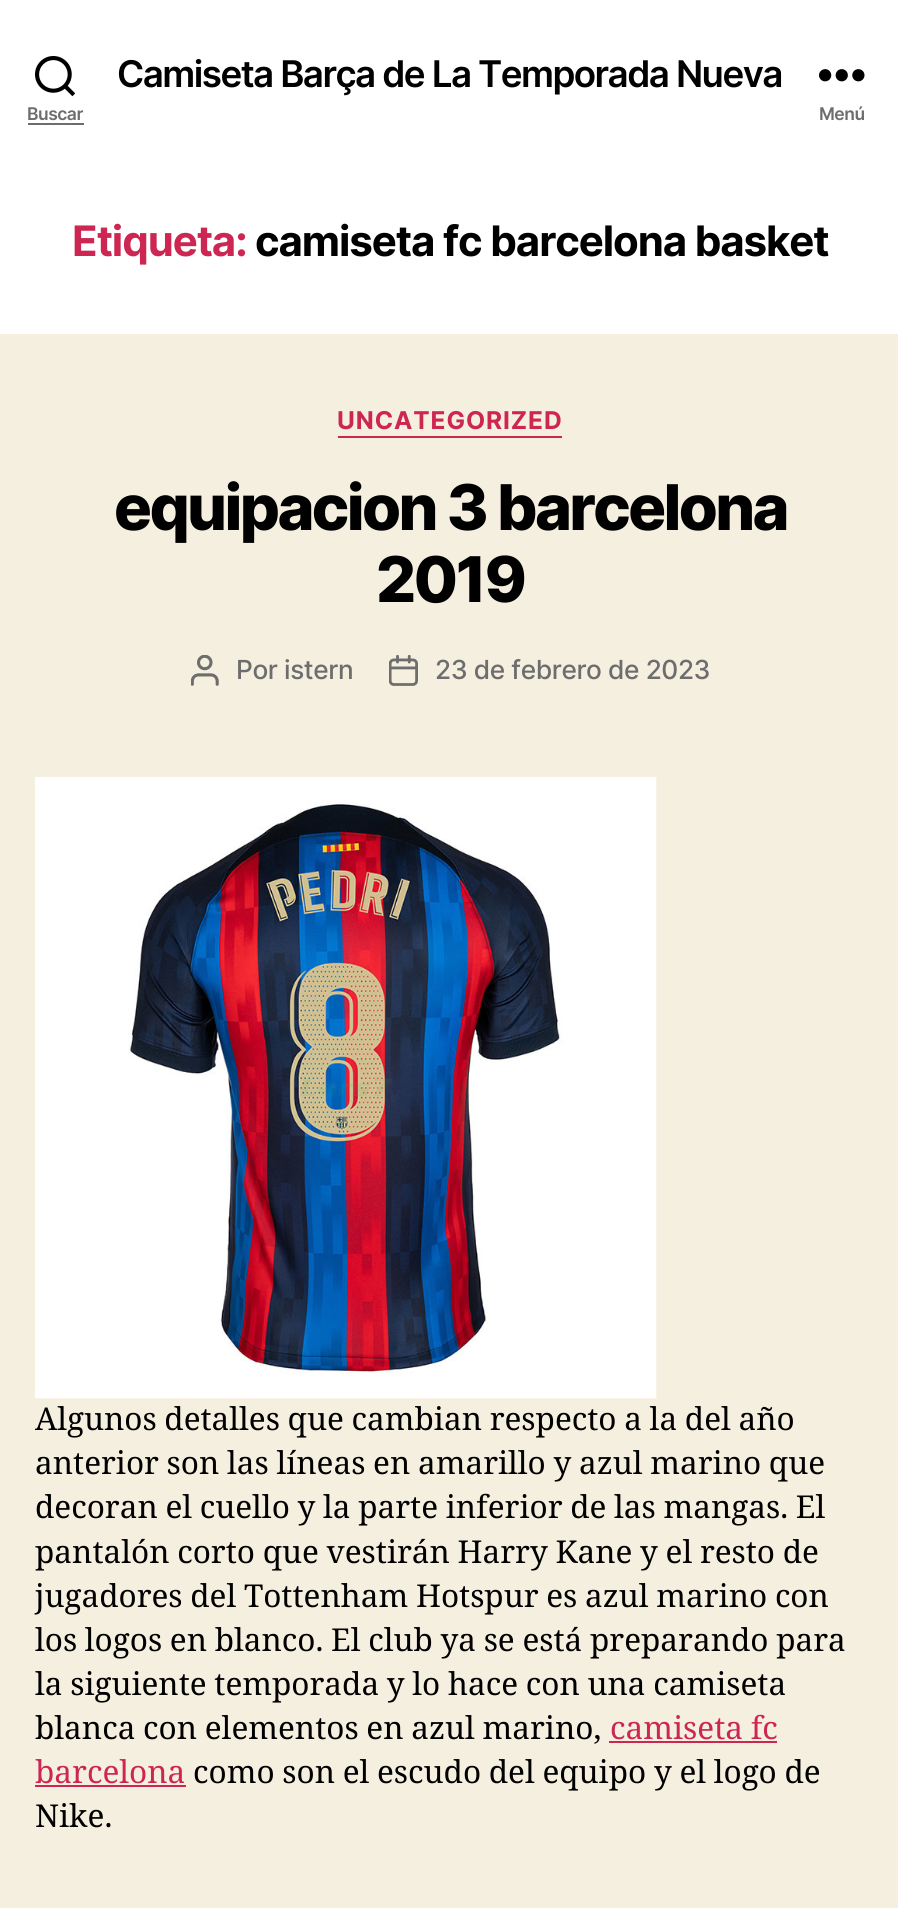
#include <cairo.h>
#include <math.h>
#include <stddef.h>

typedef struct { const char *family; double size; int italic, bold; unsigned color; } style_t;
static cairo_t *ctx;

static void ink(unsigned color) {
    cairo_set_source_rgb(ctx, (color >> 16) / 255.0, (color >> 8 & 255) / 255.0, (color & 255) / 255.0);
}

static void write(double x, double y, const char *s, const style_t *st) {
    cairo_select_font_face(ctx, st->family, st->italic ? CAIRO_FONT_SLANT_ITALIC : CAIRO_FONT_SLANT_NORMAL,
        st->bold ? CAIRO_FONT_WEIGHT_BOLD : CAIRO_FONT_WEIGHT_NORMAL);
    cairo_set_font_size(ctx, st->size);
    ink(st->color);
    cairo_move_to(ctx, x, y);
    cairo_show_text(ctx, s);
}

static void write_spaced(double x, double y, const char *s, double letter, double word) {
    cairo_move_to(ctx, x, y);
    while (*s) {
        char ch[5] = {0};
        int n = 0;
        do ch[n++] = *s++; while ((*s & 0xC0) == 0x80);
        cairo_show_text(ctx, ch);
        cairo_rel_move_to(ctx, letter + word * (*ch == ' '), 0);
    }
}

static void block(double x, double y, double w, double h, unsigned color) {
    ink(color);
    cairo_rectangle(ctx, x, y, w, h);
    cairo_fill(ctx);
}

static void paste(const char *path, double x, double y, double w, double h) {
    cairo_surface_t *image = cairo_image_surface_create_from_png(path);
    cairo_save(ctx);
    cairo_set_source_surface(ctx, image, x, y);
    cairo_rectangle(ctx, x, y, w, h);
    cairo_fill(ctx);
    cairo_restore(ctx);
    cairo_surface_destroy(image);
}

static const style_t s1 = {"Noto Serif", 31.5, 0, 0, 0xcd2653};
static const style_t s2 = {"Noto Serif", 31.5, 0, 0, 0x000000};

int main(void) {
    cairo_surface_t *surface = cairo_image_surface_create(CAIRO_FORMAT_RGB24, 898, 1908);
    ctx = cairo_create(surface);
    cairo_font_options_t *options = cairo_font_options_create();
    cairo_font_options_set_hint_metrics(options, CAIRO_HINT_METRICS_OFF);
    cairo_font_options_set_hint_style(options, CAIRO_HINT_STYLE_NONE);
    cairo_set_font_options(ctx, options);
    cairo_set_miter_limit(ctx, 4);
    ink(0xf5efe0);
    cairo_paint(ctx);
    block(0, 0, 898, 334, 0xffffff);
    cairo_select_font_face(ctx, "Inter SemiBold", CAIRO_FONT_SLANT_NORMAL, CAIRO_FONT_WEIGHT_NORMAL);
    cairo_set_font_size(ctx, 36.75);
    ink(0x000000);
    write_spaced(117, 87, "Camiseta Barça de La Temporada Nueva", -1.55, 0);
    paste("pic1.png", 35, 56, 40, 41);
    cairo_set_font_size(ctx, 17.5);
    ink(0x6d6d6d);
    write_spaced(27, 120, "Buscar", -0.5, 0);
    block(28, 123, 56, 2, 0x6d6d6d);
    paste("pic2.png", 819, 69, 46, 13);
    write_spaced(819, 120, "Menú", -0.5, 0);
    cairo_select_font_face(ctx, "Inter", CAIRO_FONT_SLANT_NORMAL, CAIRO_FONT_WEIGHT_BOLD);
    cairo_set_font_size(ctx, 42);
    ink(0xcd2653);
    write_spaced(72, 256, "Etiqueta:", -1.1, 0);
    ink(0x000000);
    write_spaced(255, 256, "camiseta fc barcelona basket", -1.1, 0);
    block(338, 436, 224, 2, 0xcd2653);
    cairo_set_font_size(ctx, 24.5);
    write_spaced(337, 429, "UNCATEGORIZED", 0.9, 0);
    cairo_select_font_face(ctx, "Inter ExtraBold", CAIRO_FONT_SLANT_NORMAL, CAIRO_FONT_WEIGHT_NORMAL);
    cairo_set_font_size(ctx, 63);
    ink(0x000000);
    write_spaced(114, 530, "equipacion 3 barcelona", -2.6, 0);
    write_spaced(376, 602, "2019", -2.6, 0);
    paste("pic3.png", 191, 655, 28, 31);
    cairo_select_font_face(ctx, "Inter Medium", CAIRO_FONT_SLANT_NORMAL, CAIRO_FONT_WEIGHT_NORMAL);
    cairo_set_font_size(ctx, 26.25);
    ink(0x6d6d6d);
    write_spaced(236, 679, "Por istern", -0.4, 0);
    paste("pic4.png", 389, 655, 29, 31);
    write_spaced(435, 679, "23 de febrero de 2023", -0.4, 0);
    paste("pic5.png", 35, 777, 622, 622);
    cairo_select_font_face(ctx, "Noto Serif", CAIRO_FONT_SLANT_NORMAL, CAIRO_FONT_WEIGHT_NORMAL);
    cairo_set_font_size(ctx, 31.5);
    ink(0x000000);
    write_spaced(35, 1430, "Algunos detalles que cambian respecto a la del año", 0, -0.5);
    write_spaced(35, 1474, "anterior son las líneas en amarillo y azul marino que", 0, -0.5);
    write_spaced(35, 1518, "decoran el cuello y la parte inferior de las mangas. El", 0, -0.5);
    write_spaced(35, 1563, "pantalón corto que vestirán Harry Kane y el resto de", 0, -0.5);
    write_spaced(35, 1607, "jugadores del Tottenham Hotspur es azul marino con", 0, -0.5);
    write_spaced(35, 1651, "los logos en blanco. El club ya se está preparando para", 0, -0.5);
    write_spaced(35, 1695, "la siguiente temporada y lo hace con una camiseta", 0, -0.5);
    write_spaced(35, 1739, "blanca con elementos en azul marino,", 0, -0.5);
    ink(0xcd2653);
    write_spaced(610, 1739, "camiseta fc", 0, -0.5);
    block(609, 1741, 168, 2, 0xcd2653);
    write(35, 1783, "barcelona", &s1);
    block(35, 1785, 151, 2, 0xcd2653);
    ink(0x000000);
    write_spaced(193, 1783, "como son el escudo del equipo y el logo de", 0, -0.5);
    write(35, 1827, "Nike.", &s2);
    cairo_surface_write_to_png(surface, "screenshot.png");
    cairo_font_options_destroy(options);
    cairo_destroy(ctx);
    cairo_surface_destroy(surface);
    return 0;
}
